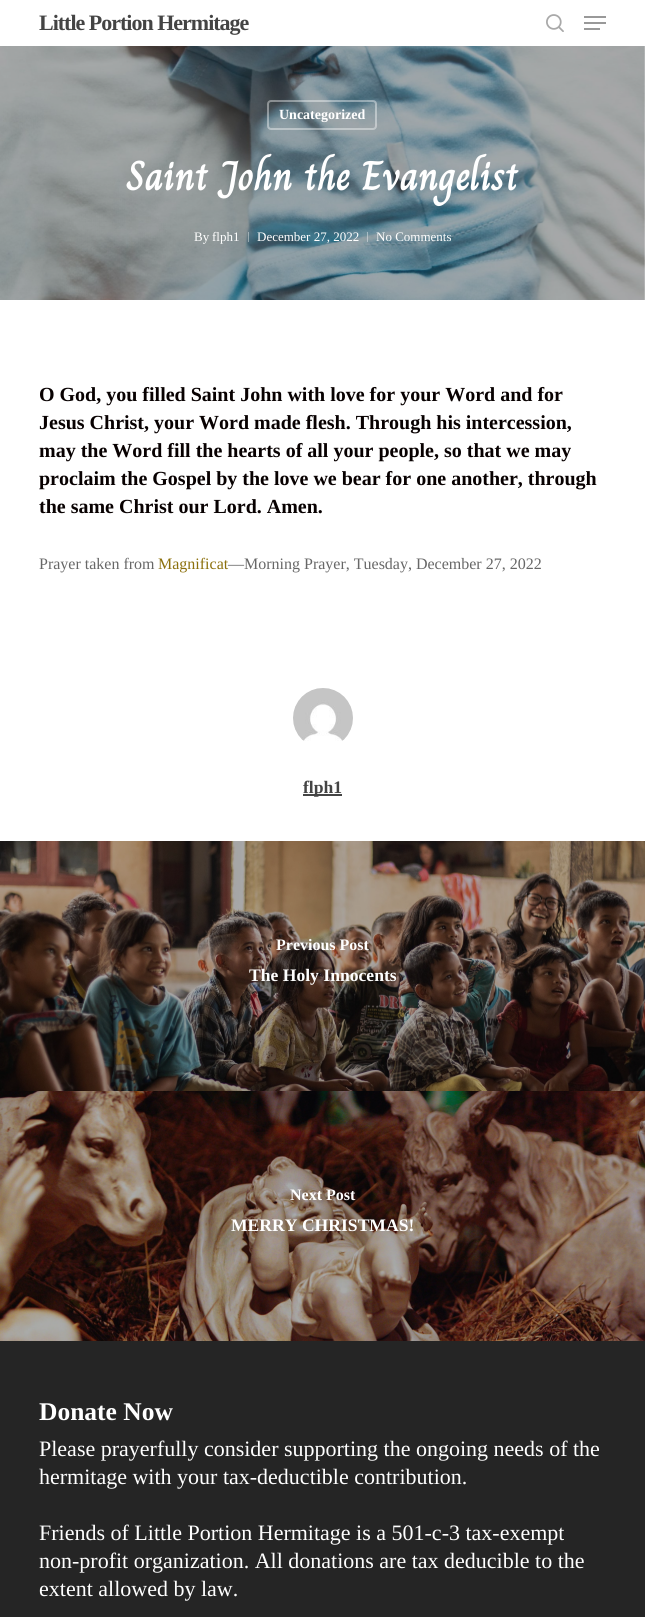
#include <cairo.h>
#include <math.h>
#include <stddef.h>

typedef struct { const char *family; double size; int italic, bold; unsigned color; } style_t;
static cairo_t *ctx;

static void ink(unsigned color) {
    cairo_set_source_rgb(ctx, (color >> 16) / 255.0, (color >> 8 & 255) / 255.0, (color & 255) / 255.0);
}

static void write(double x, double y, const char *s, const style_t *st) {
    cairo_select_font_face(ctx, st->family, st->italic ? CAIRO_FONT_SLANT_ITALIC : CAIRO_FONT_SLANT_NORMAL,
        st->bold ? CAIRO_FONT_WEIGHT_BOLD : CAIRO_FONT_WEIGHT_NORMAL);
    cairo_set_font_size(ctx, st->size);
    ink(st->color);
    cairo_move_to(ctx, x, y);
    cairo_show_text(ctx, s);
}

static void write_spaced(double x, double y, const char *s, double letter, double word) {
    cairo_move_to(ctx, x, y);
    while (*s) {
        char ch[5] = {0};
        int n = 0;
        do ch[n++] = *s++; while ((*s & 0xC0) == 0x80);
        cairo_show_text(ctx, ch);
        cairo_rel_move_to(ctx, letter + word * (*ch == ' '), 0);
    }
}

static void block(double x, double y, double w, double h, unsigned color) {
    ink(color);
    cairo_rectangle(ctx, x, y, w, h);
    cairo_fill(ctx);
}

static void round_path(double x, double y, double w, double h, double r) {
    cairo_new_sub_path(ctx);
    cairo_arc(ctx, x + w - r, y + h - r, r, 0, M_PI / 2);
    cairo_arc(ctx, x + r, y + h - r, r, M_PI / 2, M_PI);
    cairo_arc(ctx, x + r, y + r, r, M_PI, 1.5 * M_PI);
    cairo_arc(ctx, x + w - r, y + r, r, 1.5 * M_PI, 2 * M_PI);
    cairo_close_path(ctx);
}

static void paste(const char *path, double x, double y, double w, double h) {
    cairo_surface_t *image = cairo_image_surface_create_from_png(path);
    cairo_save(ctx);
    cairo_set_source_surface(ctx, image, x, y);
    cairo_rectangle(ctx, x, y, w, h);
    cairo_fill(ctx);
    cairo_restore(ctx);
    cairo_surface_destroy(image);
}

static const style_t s1 = {"Liberation Serif", 14, 0, 1, 0xffffff};
static const style_t s2 = {"Charm", 40.25, 0, 1, 0xffffff};
static const style_t s3 = {"Liberation Serif", 13, 0, 0, 0xffffff};
static const style_t s4 = {"Liberation Serif", 20, 0, 1, 0x080101};
static const style_t s5 = {"Liberation Serif", 16, 0, 0, 0x676767};
static const style_t s6 = {"Liberation Serif", 16, 0, 0, 0x8c700c};
static const style_t s7 = {"Liberation Serif", 17.6, 0, 1, 0x444444};
static const style_t s8 = {"Liberation Serif", 16, 0, 1, 0xffffff};
static const style_t s9 = {"Liberation Serif", 17.6, 0, 1, 0xffffff};
static const style_t s10 = {"Liberation Serif", 25.5, 0, 1, 0xffffff};
static const style_t s11 = {"Liberation Serif", 22, 0, 0, 0xffffff};

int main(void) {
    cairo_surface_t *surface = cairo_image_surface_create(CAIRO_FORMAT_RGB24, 645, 1617);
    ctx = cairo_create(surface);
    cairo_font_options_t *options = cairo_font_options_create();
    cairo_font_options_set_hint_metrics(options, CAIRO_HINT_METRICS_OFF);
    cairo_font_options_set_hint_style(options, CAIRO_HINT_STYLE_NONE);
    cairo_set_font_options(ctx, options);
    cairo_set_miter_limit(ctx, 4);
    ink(0xffffff);
    cairo_paint(ctx);
    cairo_select_font_face(ctx, "Liberation Serif", CAIRO_FONT_SLANT_NORMAL, CAIRO_FONT_WEIGHT_BOLD);
    cairo_set_font_size(ctx, 22);
    ink(0x444444);
    write_spaced(39, 30, "Little Portion Hermitage", -1, 0);
    paste("pic1.png", 546, 14, 18, 18);
    block(584, 16, 22, 2, 0x999999);
    block(584, 28, 16, 2, 0x999999);
    block(584, 22, 22, 2, 0x999999);
    paste("pic2.png", 0, 46, 645, 254);
    round_path(268, 101, 108, 28, 3);
    cairo_set_source_rgba(ctx, 1, 1, 1, 0.4);
    cairo_stroke(ctx);
    write(279, 119, "Uncategorized", &s1);
    write(126, 190, "Saint John the Evangelist", &s2);
    write(194, 241, "By", &s3);
    write(212, 241, "flph1", &s3);
    cairo_set_source_rgba(ctx, 1, 1, 1, 0.4);
    cairo_rectangle(ctx, 248, 232, 1, 10);
    cairo_fill(ctx);
    write(257, 241, "December 27, 2022", &s3);
    cairo_set_source_rgba(ctx, 1, 1, 1, 0.4);
    cairo_rectangle(ctx, 367, 232, 1, 10);
    cairo_fill(ctx);
    write(376, 241, "No Comments", &s3);
    write(39, 401, "O God, you filled Saint John with love for your Word and for", &s4);
    write(39, 429, "Jesus Christ, your Word made flesh. Through his intercession,", &s4);
    write(39, 457, "may the Word fill the hearts of all your people, so that we may", &s4);
    write(39, 485, "proclaim the Gospel by the love we bear for one another, through", &s4);
    write(39, 513, "the same Christ our Lord. Amen.", &s4);
    write(39, 569, "Prayer taken from", &s5);
    write(158, 569, "Magnificat", &s6);
    write(228, 569, "—Morning Prayer, Tuesday, December 27, 2022", &s5);
    paste("pic3.png", 293, 688, 60, 53);
    block(303, 794, 39, 2, 0x444444);
    write(303, 793, "flph1", &s7);
    paste("pic4.png", 0, 841, 645, 250);
    write(276, 950, "Previous Post", &s8);
    write(249, 981, "The Holy Innocents", &s9);
    paste("pic5.png", 0, 1091, 645, 250);
    write(290, 1200, "Next Post", &s8);
    write(231, 1231, "MERRY CHRISTMAS!", &s9);
    block(0, 1341, 645, 276, 0x252525);
    write(39, 1420, "Donate Now", &s10);
    write(39, 1456, "Please prayerfully consider supporting the ongoing needs of the", &s11);
    write(39, 1484, "hermitage with your tax-deductible contribution.", &s11);
    write(39, 1540, "Friends of Little Portion Hermitage is a 501-c-3 tax-exempt", &s11);
    write(39, 1568, "non-profit organization. All donations are tax deducible to the", &s11);
    write(39, 1596, "extent allowed by law.", &s11);
    cairo_surface_write_to_png(surface, "screenshot.png");
    cairo_font_options_destroy(options);
    cairo_destroy(ctx);
    cairo_surface_destroy(surface);
    return 0;
}
